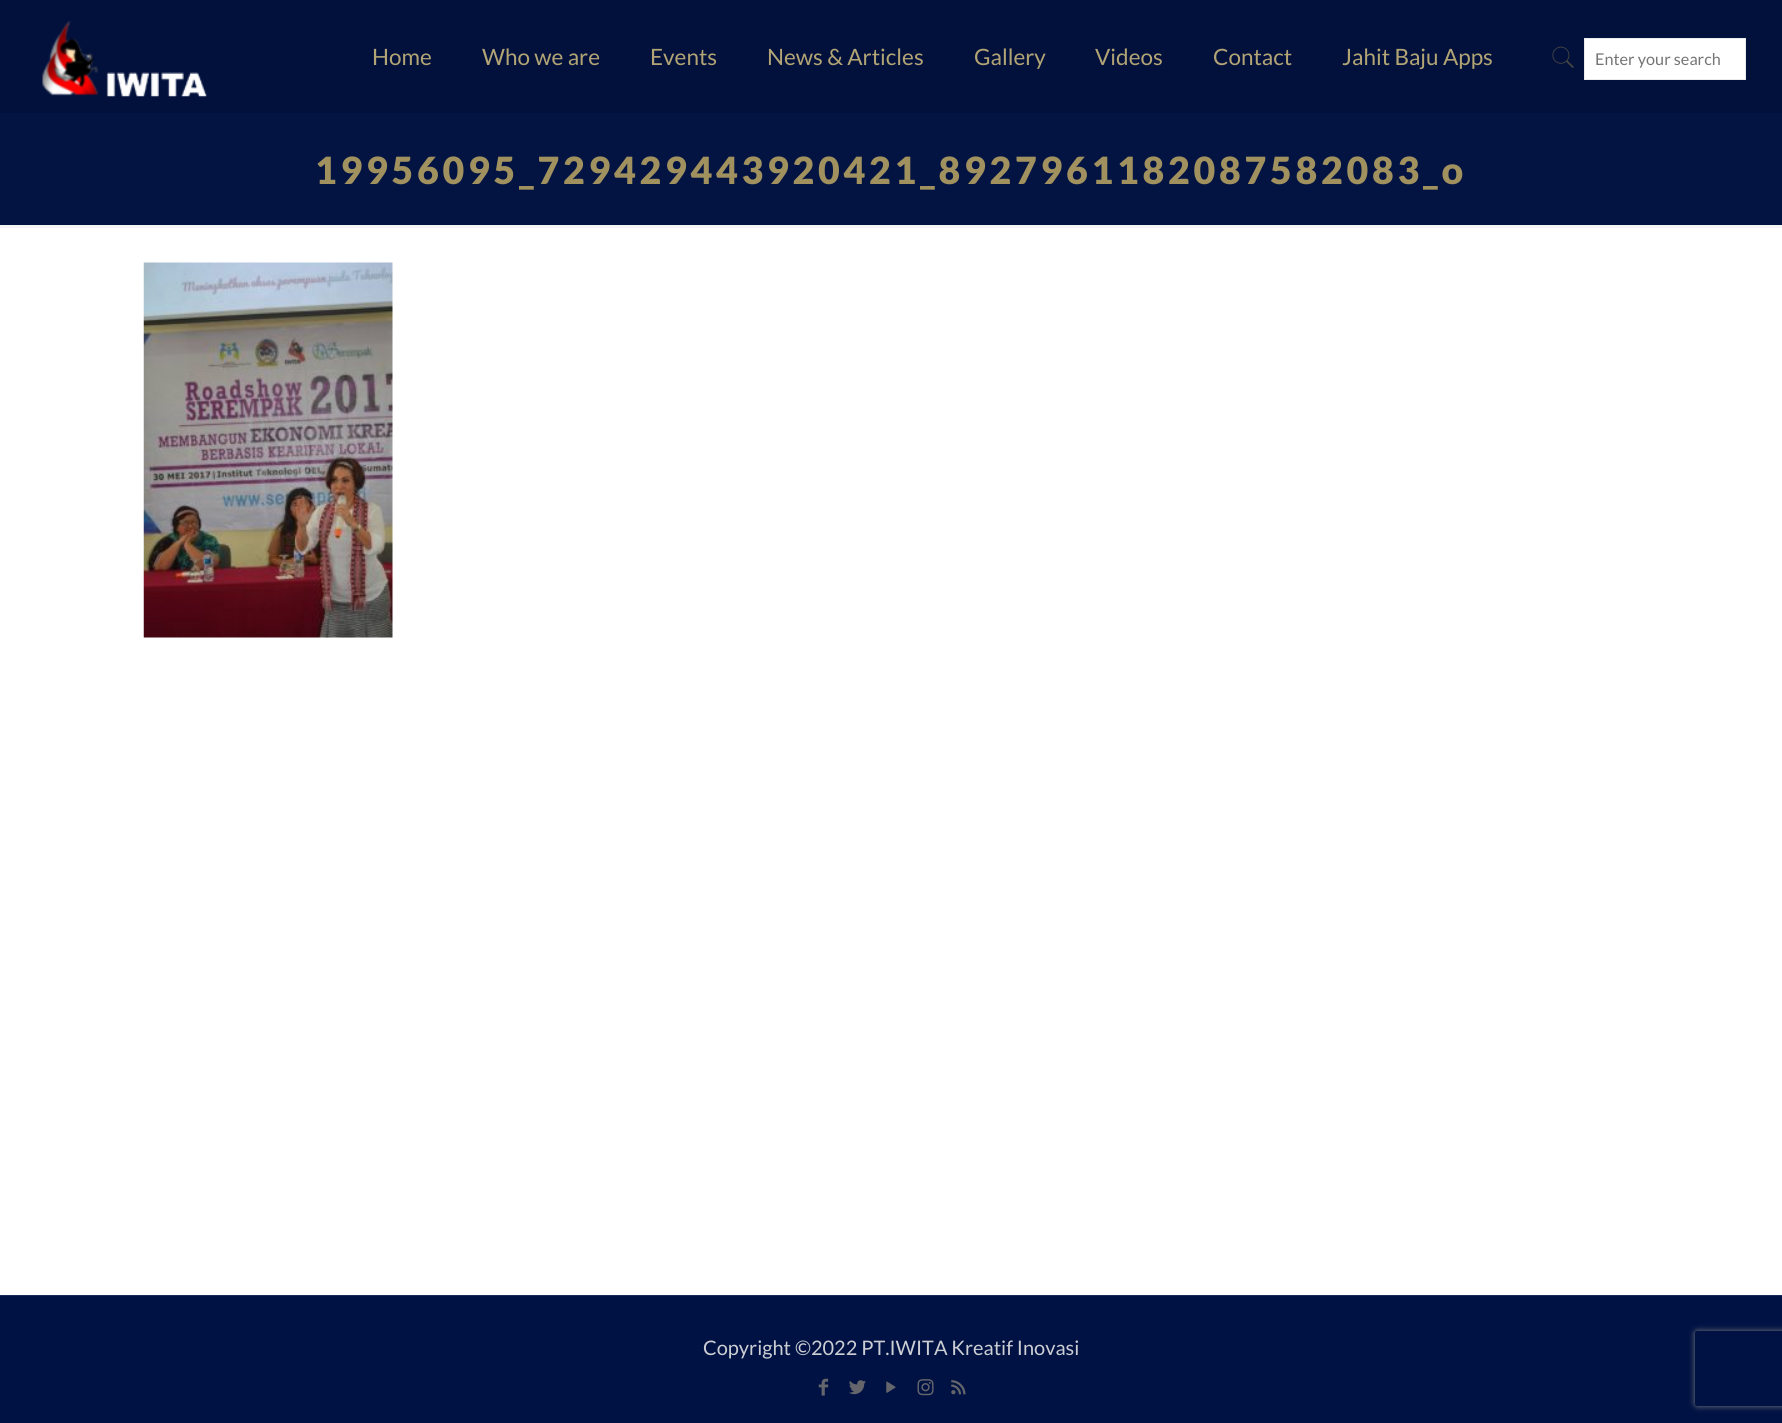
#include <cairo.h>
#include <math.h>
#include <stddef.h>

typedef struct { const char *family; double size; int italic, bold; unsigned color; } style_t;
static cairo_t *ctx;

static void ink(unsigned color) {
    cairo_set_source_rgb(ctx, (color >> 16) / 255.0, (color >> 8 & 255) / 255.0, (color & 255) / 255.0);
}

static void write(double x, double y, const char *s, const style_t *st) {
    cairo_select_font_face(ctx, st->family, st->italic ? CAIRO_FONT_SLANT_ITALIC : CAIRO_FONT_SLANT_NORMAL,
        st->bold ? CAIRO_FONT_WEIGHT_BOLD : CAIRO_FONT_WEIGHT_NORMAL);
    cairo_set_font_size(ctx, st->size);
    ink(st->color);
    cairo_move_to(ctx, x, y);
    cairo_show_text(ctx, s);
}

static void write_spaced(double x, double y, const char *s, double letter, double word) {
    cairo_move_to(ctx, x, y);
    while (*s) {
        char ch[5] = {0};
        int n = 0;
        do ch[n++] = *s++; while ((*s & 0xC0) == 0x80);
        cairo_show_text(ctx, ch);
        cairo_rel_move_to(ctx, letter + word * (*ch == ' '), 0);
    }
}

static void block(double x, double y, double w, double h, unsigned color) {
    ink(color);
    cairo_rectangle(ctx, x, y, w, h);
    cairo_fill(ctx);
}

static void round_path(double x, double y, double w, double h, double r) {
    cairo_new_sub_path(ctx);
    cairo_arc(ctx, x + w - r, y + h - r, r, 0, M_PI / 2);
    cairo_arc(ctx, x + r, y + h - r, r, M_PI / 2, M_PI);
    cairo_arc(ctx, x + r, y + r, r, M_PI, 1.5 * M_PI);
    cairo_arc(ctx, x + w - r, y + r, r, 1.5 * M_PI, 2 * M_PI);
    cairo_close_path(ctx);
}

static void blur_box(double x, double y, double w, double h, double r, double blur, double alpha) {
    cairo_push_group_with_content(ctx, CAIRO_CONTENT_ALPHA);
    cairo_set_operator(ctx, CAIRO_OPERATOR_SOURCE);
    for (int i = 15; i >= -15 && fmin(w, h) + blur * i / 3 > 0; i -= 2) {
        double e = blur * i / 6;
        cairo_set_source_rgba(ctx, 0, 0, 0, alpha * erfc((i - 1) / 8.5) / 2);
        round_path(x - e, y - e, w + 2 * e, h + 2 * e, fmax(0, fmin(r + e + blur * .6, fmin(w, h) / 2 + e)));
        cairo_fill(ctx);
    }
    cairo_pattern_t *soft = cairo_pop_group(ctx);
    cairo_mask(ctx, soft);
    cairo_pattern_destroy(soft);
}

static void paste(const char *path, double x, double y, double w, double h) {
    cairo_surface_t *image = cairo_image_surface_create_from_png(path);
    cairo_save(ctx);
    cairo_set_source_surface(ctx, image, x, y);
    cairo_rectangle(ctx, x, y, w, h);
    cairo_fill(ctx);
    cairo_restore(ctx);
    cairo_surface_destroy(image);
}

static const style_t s1 = {"Lato", 22.5, 0, 0, 0xb2a475};
static const style_t s2 = {"Lato", 16.25, 0, 0, 0x757575};
static const style_t s3 = {"Lato", 20, 0, 0, 0xccced4};

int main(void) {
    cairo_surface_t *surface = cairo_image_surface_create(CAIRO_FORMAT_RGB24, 1782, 1423);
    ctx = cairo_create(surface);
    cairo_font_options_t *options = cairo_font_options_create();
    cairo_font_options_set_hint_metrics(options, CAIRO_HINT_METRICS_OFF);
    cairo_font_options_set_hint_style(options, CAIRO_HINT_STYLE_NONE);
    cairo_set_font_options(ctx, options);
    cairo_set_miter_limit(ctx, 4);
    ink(0xffffff);
    cairo_paint(ctx);
    block(0, 113, 1782, 112, 0x031442);
    block(0, 0, 1782, 113, 0x02113c);
    paste("pic1.png", 42, 21, 165, 76);
    write(372, 65, "Home", &s1);
    write(482, 65, "Who we are", &s1);
    write(650, 65, "Events", &s1);
    write(767, 65, "News & Articles", &s1);
    write(974, 65, "Gallery", &s1);
    write(1095, 65, "Videos", &s1);
    write(1213, 65, "Contact", &s1);
    write(1342, 65, "Jahit Baju Apps", &s1);
    paste("pic2.png", 1552, 46, 22, 22);
    ink(0xffffff);
    cairo_rectangle(ctx, 1584.5, 38.5, 161, 41);
    cairo_fill_preserve(ctx);
    ink(0xebebeb);
    cairo_set_line_width(ctx, 1);
    cairo_stroke(ctx);
    write(1595, 65, "Enter your search", &s2);
    cairo_select_font_face(ctx, "Lato Black", CAIRO_FONT_SLANT_NORMAL, CAIRO_FONT_WEIGHT_NORMAL);
    cairo_set_font_size(ctx, 37.5);
    ink(0xa0915f);
    write_spaced(315, 184, "19956095_729429443920421_8927961182087582083_o", 3.75, 0);
    block(0, 225, 1782, 3, 0xf5f5f5);
    paste("pic3.png", 143, 262, 250, 376);
    block(0, 1296, 1782, 127, 0x001243);
    block(0, 1295, 1782, 1, 0x1a2a56);
    write(703, 1355, "Copyright ©2022 PT.IWITA Kreatif Inovasi", &s3);
    paste("pic4.png", 818, 1378, 11, 18);
    paste("pic5.png", 849, 1380, 17, 15);
    paste("pic6.png", 886, 1381, 10, 12);
    paste("pic7.png", 917, 1379, 17, 17);
    paste("pic8.png", 951, 1380, 15, 15);
    cairo_save(ctx);
    cairo_set_fill_rule(ctx, CAIRO_FILL_RULE_EVEN_ODD);
    cairo_new_path(ctx);
    cairo_move_to(ctx, 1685, 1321);
    cairo_line_to(ctx, 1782, 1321);
    cairo_line_to(ctx, 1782, 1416);
    cairo_line_to(ctx, 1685, 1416);
    cairo_close_path(ctx);
    cairo_move_to(ctx, 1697.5, 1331);
    cairo_line_to(ctx, 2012.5, 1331);
    cairo_curve_to(ctx, 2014, 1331, 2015, 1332, 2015, 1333.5);
    cairo_line_to(ctx, 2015, 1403.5);
    cairo_curve_to(ctx, 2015, 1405, 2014, 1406, 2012.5, 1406);
    cairo_line_to(ctx, 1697.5, 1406);
    cairo_curve_to(ctx, 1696, 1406, 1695, 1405, 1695, 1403.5);
    cairo_line_to(ctx, 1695, 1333.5);
    cairo_curve_to(ctx, 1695, 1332, 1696, 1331, 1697.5, 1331);
    cairo_close_path(ctx);
    cairo_clip(ctx);
    ink(0x808080);
    blur_box(1695, 1331, 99, 75, 2.5, 3, 1);
    cairo_restore(ctx);
    cairo_surface_write_to_png(surface, "screenshot.png");
    cairo_font_options_destroy(options);
    cairo_destroy(ctx);
    cairo_surface_destroy(surface);
    return 0;
}
